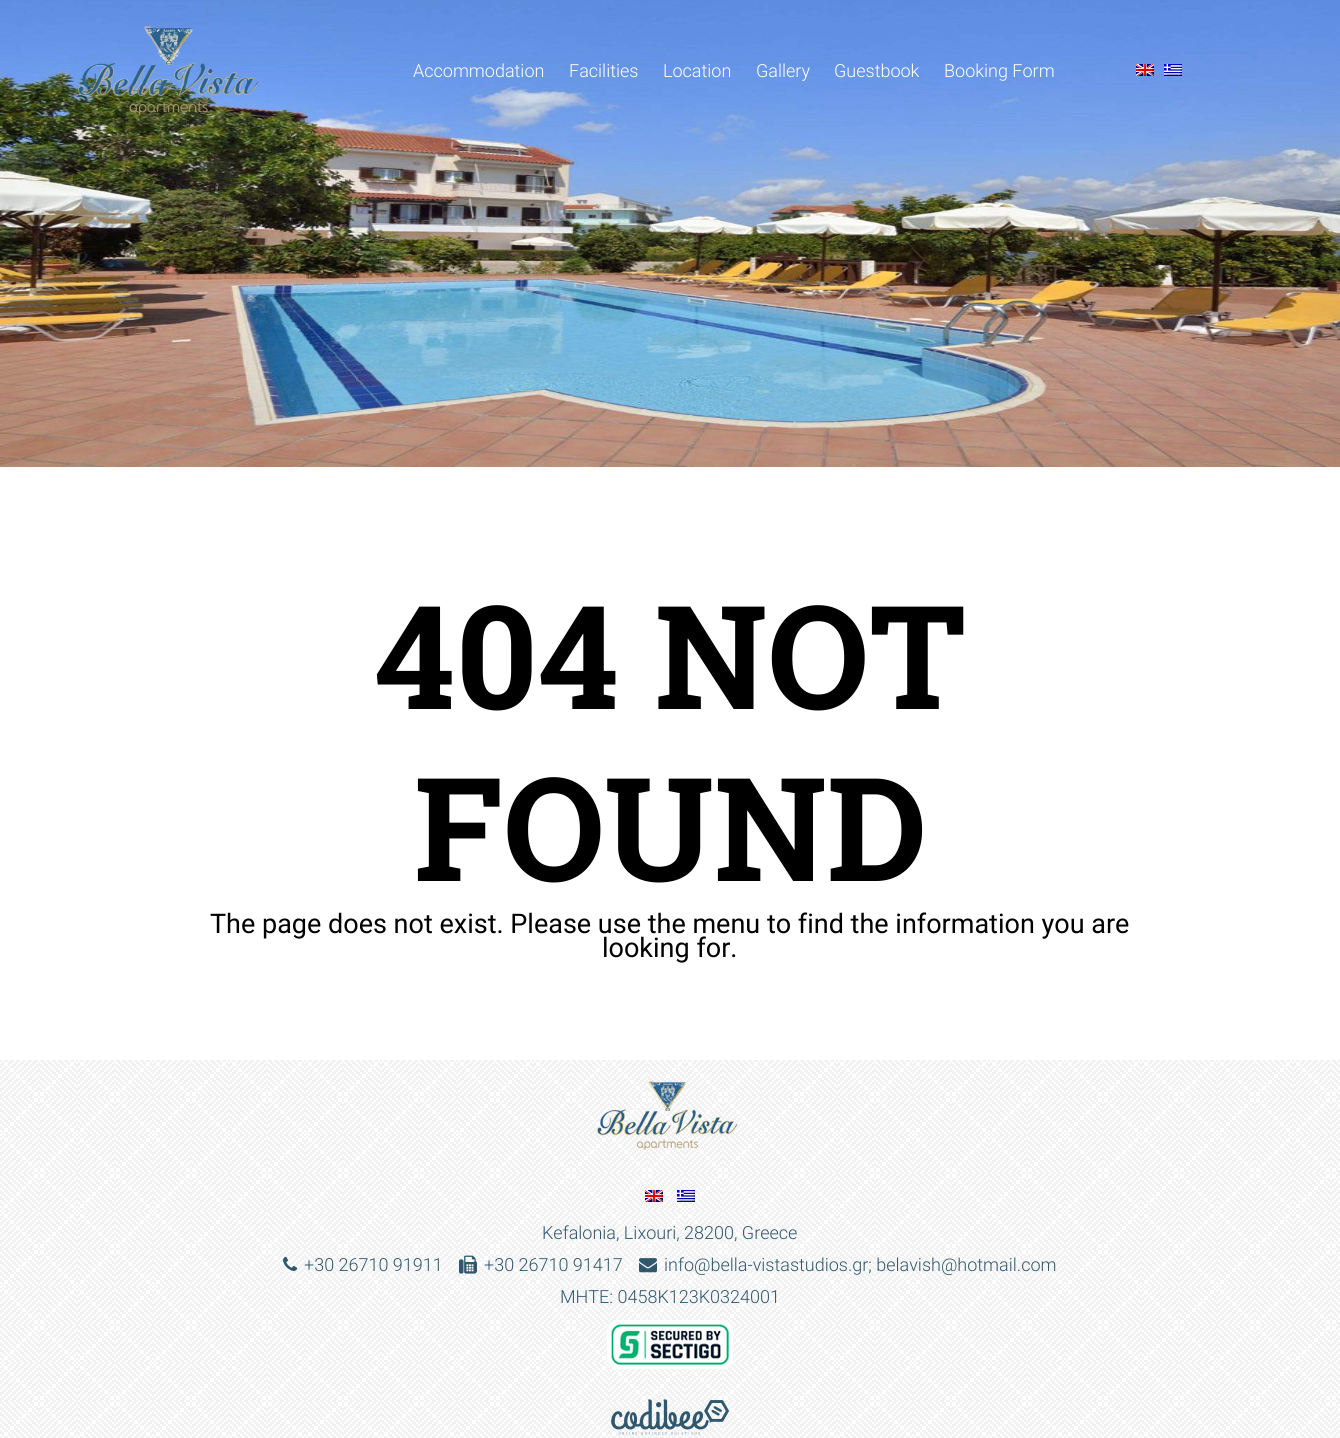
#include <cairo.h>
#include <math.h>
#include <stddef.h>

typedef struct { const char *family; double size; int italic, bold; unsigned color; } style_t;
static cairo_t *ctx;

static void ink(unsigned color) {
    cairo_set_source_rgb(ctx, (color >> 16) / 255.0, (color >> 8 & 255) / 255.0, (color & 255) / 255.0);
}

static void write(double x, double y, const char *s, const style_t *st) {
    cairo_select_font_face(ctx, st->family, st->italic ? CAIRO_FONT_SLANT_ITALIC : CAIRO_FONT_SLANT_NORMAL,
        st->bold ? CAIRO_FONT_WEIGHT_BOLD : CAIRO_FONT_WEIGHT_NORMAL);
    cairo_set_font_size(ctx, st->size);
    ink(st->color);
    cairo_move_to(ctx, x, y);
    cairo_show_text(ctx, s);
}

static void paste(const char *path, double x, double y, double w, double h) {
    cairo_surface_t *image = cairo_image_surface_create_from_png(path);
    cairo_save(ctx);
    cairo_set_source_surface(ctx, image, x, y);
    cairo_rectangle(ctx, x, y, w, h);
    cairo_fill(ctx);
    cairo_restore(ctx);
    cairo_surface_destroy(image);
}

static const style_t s1 = {"Roboto Light", 18, 0, 0, 0xffffff};
static const style_t s2 = {"Roboto Slab", 144, 0, 1, 0x000000};
static const style_t s3 = {"Roboto", 27, 0, 0, 0x000000};
static const style_t s4 = {"Roboto Light", 18, 0, 0, 0x2f586e};

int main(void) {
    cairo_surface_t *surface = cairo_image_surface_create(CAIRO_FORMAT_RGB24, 1340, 1438);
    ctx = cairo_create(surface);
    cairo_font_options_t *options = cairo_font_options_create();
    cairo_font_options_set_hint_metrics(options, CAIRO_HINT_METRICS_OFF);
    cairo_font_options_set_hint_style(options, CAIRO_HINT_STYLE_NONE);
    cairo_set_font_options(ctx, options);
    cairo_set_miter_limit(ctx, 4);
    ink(0xffffff);
    cairo_paint(ctx);
    paste("pic4.png", 0, 0, 1340, 467);
    paste("pic1.png", 77, 25, 182, 90);
    write(413, 77, "Accommodation", &s1);
    write(569, 77, "Facilities", &s1);
    write(663, 77, "Location", &s1);
    write(756, 77, "Gallery", &s1);
    write(834, 77, "Guestbook", &s1);
    write(944, 77, "Booking Form", &s1);
    paste("pic2.png", 1136, 64, 18, 12);
    paste("pic3.png", 1164, 64, 18, 12);
    write(374, 709, "404 NOT", &s2);
    write(414, 881, "FOUND", &s2);
    write(210, 933, "The page does not exist. Please use the menu to find the information you are", &s3);
    write(602, 957, "looking for.", &s3);
    paste("pic5.png", 0, 1060, 1340, 378);
    paste("pic6.png", 597, 1080, 141, 70);
    paste("pic2.png", 645, 1190, 18, 12);
    paste("pic3.png", 677, 1190, 18, 12);
    write(542, 1239, "Kefalonia, Lixouri, 28200, Greece", &s4);
    paste("pic7.png", 283, 1256, 15, 15);
    write(304, 1271, "+30 26710 91911", &s4);
    paste("pic8.png", 459, 1255, 18, 19);
    write(484, 1271, "+30 26710 91417", &s4);
    paste("pic9.png", 639, 1258, 18, 15);
    write(664, 1271, "info@bella-vistastudios.gr; belavish@hotmail.com", &s4);
    write(560, 1303, "MHTE: 0458K123K0324001", &s4);
    paste("pic10.png", 607, 1320, 126, 49);
    paste("pic11.png", 611, 1399, 118, 36);
    cairo_surface_write_to_png(surface, "screenshot.png");
    cairo_font_options_destroy(options);
    cairo_destroy(ctx);
    cairo_surface_destroy(surface);
    return 0;
}
